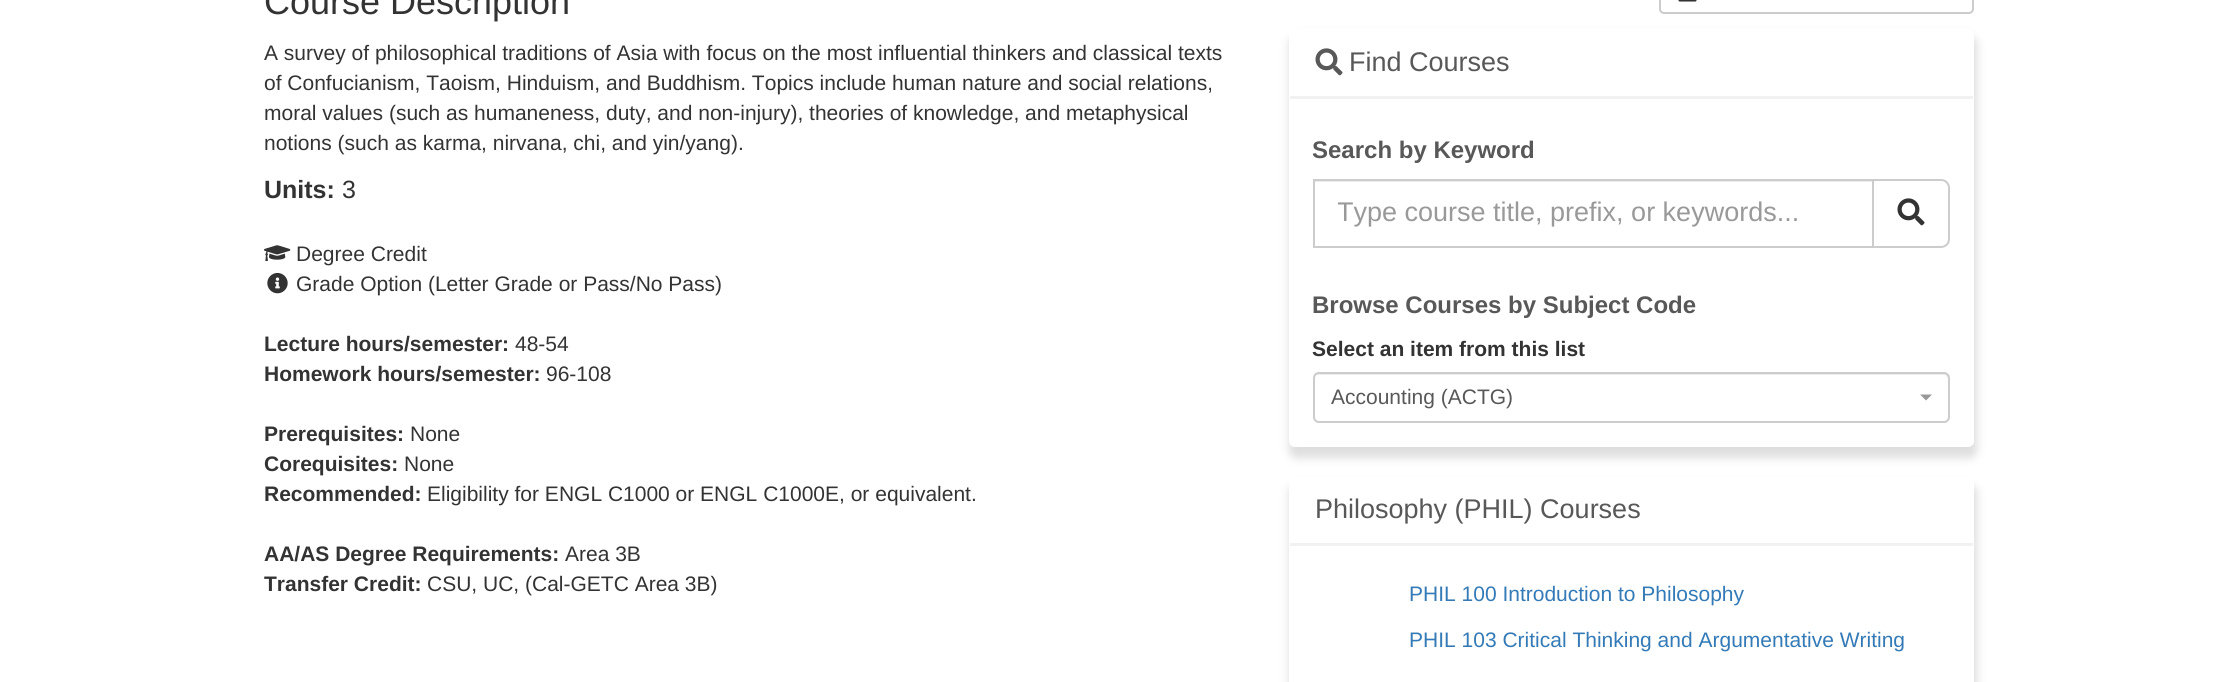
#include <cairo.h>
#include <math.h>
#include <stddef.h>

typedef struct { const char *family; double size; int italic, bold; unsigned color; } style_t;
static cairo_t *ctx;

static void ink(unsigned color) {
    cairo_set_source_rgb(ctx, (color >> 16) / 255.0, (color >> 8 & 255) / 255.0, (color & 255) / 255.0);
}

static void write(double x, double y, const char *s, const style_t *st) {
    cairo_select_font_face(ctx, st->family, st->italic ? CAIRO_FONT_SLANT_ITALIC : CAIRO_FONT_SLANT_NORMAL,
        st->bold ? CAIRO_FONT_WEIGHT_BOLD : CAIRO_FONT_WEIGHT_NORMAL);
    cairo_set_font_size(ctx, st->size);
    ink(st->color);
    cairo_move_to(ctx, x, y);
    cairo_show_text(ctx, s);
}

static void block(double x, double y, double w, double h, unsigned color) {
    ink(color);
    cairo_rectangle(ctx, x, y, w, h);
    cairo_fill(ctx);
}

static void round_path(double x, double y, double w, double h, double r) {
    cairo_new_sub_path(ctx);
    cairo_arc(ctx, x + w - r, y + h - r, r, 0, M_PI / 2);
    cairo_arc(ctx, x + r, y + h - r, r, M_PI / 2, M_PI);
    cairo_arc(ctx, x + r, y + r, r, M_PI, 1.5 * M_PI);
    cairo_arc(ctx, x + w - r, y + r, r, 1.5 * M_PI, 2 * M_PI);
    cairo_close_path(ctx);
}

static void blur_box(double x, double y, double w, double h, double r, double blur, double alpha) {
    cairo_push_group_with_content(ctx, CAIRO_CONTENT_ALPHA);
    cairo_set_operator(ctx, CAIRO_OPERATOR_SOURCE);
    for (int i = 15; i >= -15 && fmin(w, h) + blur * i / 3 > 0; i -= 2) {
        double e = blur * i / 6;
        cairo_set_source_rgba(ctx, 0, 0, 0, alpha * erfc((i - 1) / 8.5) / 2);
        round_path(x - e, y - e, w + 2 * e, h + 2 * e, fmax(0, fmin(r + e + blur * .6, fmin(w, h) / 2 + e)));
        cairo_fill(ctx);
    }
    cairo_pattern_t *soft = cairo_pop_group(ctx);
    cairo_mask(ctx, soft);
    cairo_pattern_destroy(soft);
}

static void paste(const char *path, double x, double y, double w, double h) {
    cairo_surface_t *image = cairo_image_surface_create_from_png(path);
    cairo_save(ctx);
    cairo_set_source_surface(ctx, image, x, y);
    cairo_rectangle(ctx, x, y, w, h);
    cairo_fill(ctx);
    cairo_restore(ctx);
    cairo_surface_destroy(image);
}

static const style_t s1 = {"Liberation Sans", 36, 0, 0, 0x333333};
static const style_t s2 = {"Liberation Sans", 21, 0, 0, 0x333333};
static const style_t s3 = {"Liberation Sans", 25, 0, 1, 0x333333};
static const style_t s4 = {"Liberation Sans", 25, 0, 0, 0x333333};
static const style_t s5 = {"Liberation Sans", 21, 0, 1, 0x333333};
static const style_t s6 = {"Liberation Sans", 27, 0, 0, 0x585858};
static const style_t s7 = {"Liberation Sans", 24, 0, 1, 0x585858};
static const style_t s8 = {"Liberation Sans", 27, 0, 0, 0x999999};
static const style_t s9 = {"Liberation Sans", 21, 0, 0, 0x585858};
static const style_t s10 = {"Liberation Sans", 21, 0, 0, 0x337ab7};

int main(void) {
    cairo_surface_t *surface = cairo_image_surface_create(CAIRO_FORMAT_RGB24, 2238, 682);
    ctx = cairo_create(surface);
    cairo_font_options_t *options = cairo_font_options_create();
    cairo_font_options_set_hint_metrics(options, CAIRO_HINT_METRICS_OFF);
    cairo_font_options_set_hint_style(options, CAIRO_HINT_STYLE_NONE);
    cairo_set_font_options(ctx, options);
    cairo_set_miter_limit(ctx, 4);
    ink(0xffffff);
    cairo_paint(ctx);
    write(264, 14, "Course Description", &s1);
    write(264, 60, "A survey of philosophical traditions of Asia with focus on the most influential thinkers and classical texts", &s2);
    write(264, 90, "of Confucianism, Taoism, Hinduism, and Buddhism. Topics include human nature and social relations,", &s2);
    write(264, 120, "moral values (such as humaneness, duty, and non-injury), theories of knowledge, and metaphysical", &s2);
    write(264, 150, "notions (such as karma, nirvana, chi, and yin/yang).", &s2);
    write(264, 198, "Units:", &s3);
    write(342, 198, "3", &s4);
    paste("pic1.png", 264, 245, 27, 16);
    write(296, 261, "Degree Credit", &s2);
    paste("pic2.png", 267, 272, 21, 22);
    write(296, 291, "Grade Option (Letter Grade or Pass/No Pass)", &s2);
    write(264, 351, "Lecture hours/semester:", &s5);
    write(515, 351, "48-54", &s2);
    write(264, 381, "Homework hours/semester:", &s5);
    write(546, 381, "96-108", &s2);
    write(264, 441, "Prerequisites:", &s5);
    write(410, 441, "None", &s2);
    write(264, 471, "Corequisites:", &s5);
    write(404, 471, "None", &s2);
    write(264, 501, "Recommended:", &s5);
    write(427, 501, "Eligibility for ENGL C1000 or ENGL C1000E, or equivalent.", &s2);
    write(264, 561, "AA/AS Degree Requirements:", &s5);
    write(565, 561, "Area 3B", &s2);
    write(264, 591, "Transfer Credit:", &s5);
    write(427, 591, "CSU, UC, (Cal-GETC Area 3B)", &s2);
    round_path(1660, -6, 313, 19, 4);
    ink(0xcccccc);
    cairo_stroke(ctx);
    paste("pic3.png", 1678, 0, 19, 2);
    ink(0xdedede);
    blur_box(1289, 36, 688, 422, 8, 4.5, 1);
    ink(0xffffff);
    round_path(1289, 29, 685, 418, 6);
    cairo_fill(ctx);
    block(1290, 96, 683, 3, 0xf1f1f1);
    paste("pic4.png", 1315, 48, 28, 28);
    write(1349, 71, "Find Courses", &s6);
    write(1312, 158, "Search by Keyword", &s7);
    block(1314, 181, 558, 1, 0xececec);
    cairo_new_path(ctx);
    cairo_move_to(ctx, 1873, 180);
    cairo_line_to(ctx, 1941, 180);
    cairo_curve_to(ctx, 1945.5, 180, 1949, 183.5, 1949, 188);
    cairo_line_to(ctx, 1949, 239);
    cairo_curve_to(ctx, 1949, 243.5, 1945.5, 247, 1941, 247);
    cairo_line_to(ctx, 1873, 247);
    cairo_close_path(ctx);
    ink(0xcccccc);
    cairo_stroke(ctx);
    cairo_rectangle(ctx, 1314, 180, 559, 67);
    cairo_stroke(ctx);
    cairo_save(ctx);
    cairo_rectangle(ctx, 1338, 197, 510, 31);
    cairo_clip(ctx);
    write(1337, 221, "Type course title, prefix, or keywords...", &s8);
    cairo_restore(ctx);
    paste("pic5.png", 1897, 198, 28, 28);
    write(1312, 313, "Browse Courses by Subject Code", &s7);
    write(1312, 356, "Select an item from this list", &s5);
    ink(0xececec);
    cairo_new_path(ctx);
    cairo_move_to(ctx, 1318, 375);
    cairo_line_to(ctx, 1944, 375);
    cairo_curve_to(ctx, 1946, 375, 1948, 377, 1948, 380);
    cairo_line_to(ctx, 1948, 418);
    cairo_line_to(ctx, 1947, 421);
    cairo_curve_to(ctx, 1948, 420, 1949, 418, 1949, 417);
    cairo_line_to(ctx, 1949, 379);
    cairo_curve_to(ctx, 1949, 376, 1947, 374, 1944, 374);
    cairo_line_to(ctx, 1319, 374);
    cairo_curve_to(ctx, 1316, 374, 1314, 376, 1314, 379);
    cairo_line_to(ctx, 1314, 380);
    cairo_curve_to(ctx, 1314, 377, 1316, 375, 1318, 375);
    cairo_close_path(ctx);
    cairo_fill(ctx);
    round_path(1314, 373, 635, 49, 5);
    ink(0xcccccc);
    cairo_stroke(ctx);
    write(1331, 404, "Accounting (ACTG)", &s9);
    ink(0x999999);
    cairo_new_path(ctx);
    cairo_move_to(ctx, 1920, 394.5);
    cairo_line_to(ctx, 1932, 394.5);
    cairo_line_to(ctx, 1926, 400.5);
    cairo_close_path(ctx);
    cairo_fill(ctx);
    cairo_save(ctx);
    cairo_set_fill_rule(ctx, CAIRO_FILL_RULE_EVEN_ODD);
    cairo_new_path(ctx);
    cairo_move_to(ctx, 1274, 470);
    cairo_line_to(ctx, 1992, 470);
    cairo_line_to(ctx, 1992, 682);
    cairo_line_to(ctx, 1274, 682);
    cairo_close_path(ctx);
    cairo_move_to(ctx, 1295, 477);
    cairo_line_to(ctx, 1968, 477);
    cairo_curve_to(ctx, 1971.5, 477, 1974, 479.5, 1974, 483);
    cairo_line_to(ctx, 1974, 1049);
    cairo_curve_to(ctx, 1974, 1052.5, 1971.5, 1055, 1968, 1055);
    cairo_line_to(ctx, 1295, 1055);
    cairo_curve_to(ctx, 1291.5, 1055, 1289, 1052.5, 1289, 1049);
    cairo_line_to(ctx, 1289, 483);
    cairo_curve_to(ctx, 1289, 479.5, 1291.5, 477, 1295, 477);
    cairo_close_path(ctx);
    cairo_clip(ctx);
    ink(0xdedede);
    blur_box(1289, 485, 688, 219, 8, 4.5, 1);
    cairo_restore(ctx);
    block(1290, 543, 683, 3, 0xf1f1f1);
    write(1315, 518, "Philosophy (PHIL) Courses", &s6);
    write(1409, 601, "PHIL 100 Introduction to Philosophy", &s10);
    write(1409, 647, "PHIL 103 Critical Thinking and Argumentative Writing", &s10);
    cairo_surface_write_to_png(surface, "screenshot.png");
    cairo_font_options_destroy(options);
    cairo_destroy(ctx);
    cairo_surface_destroy(surface);
    return 0;
}
